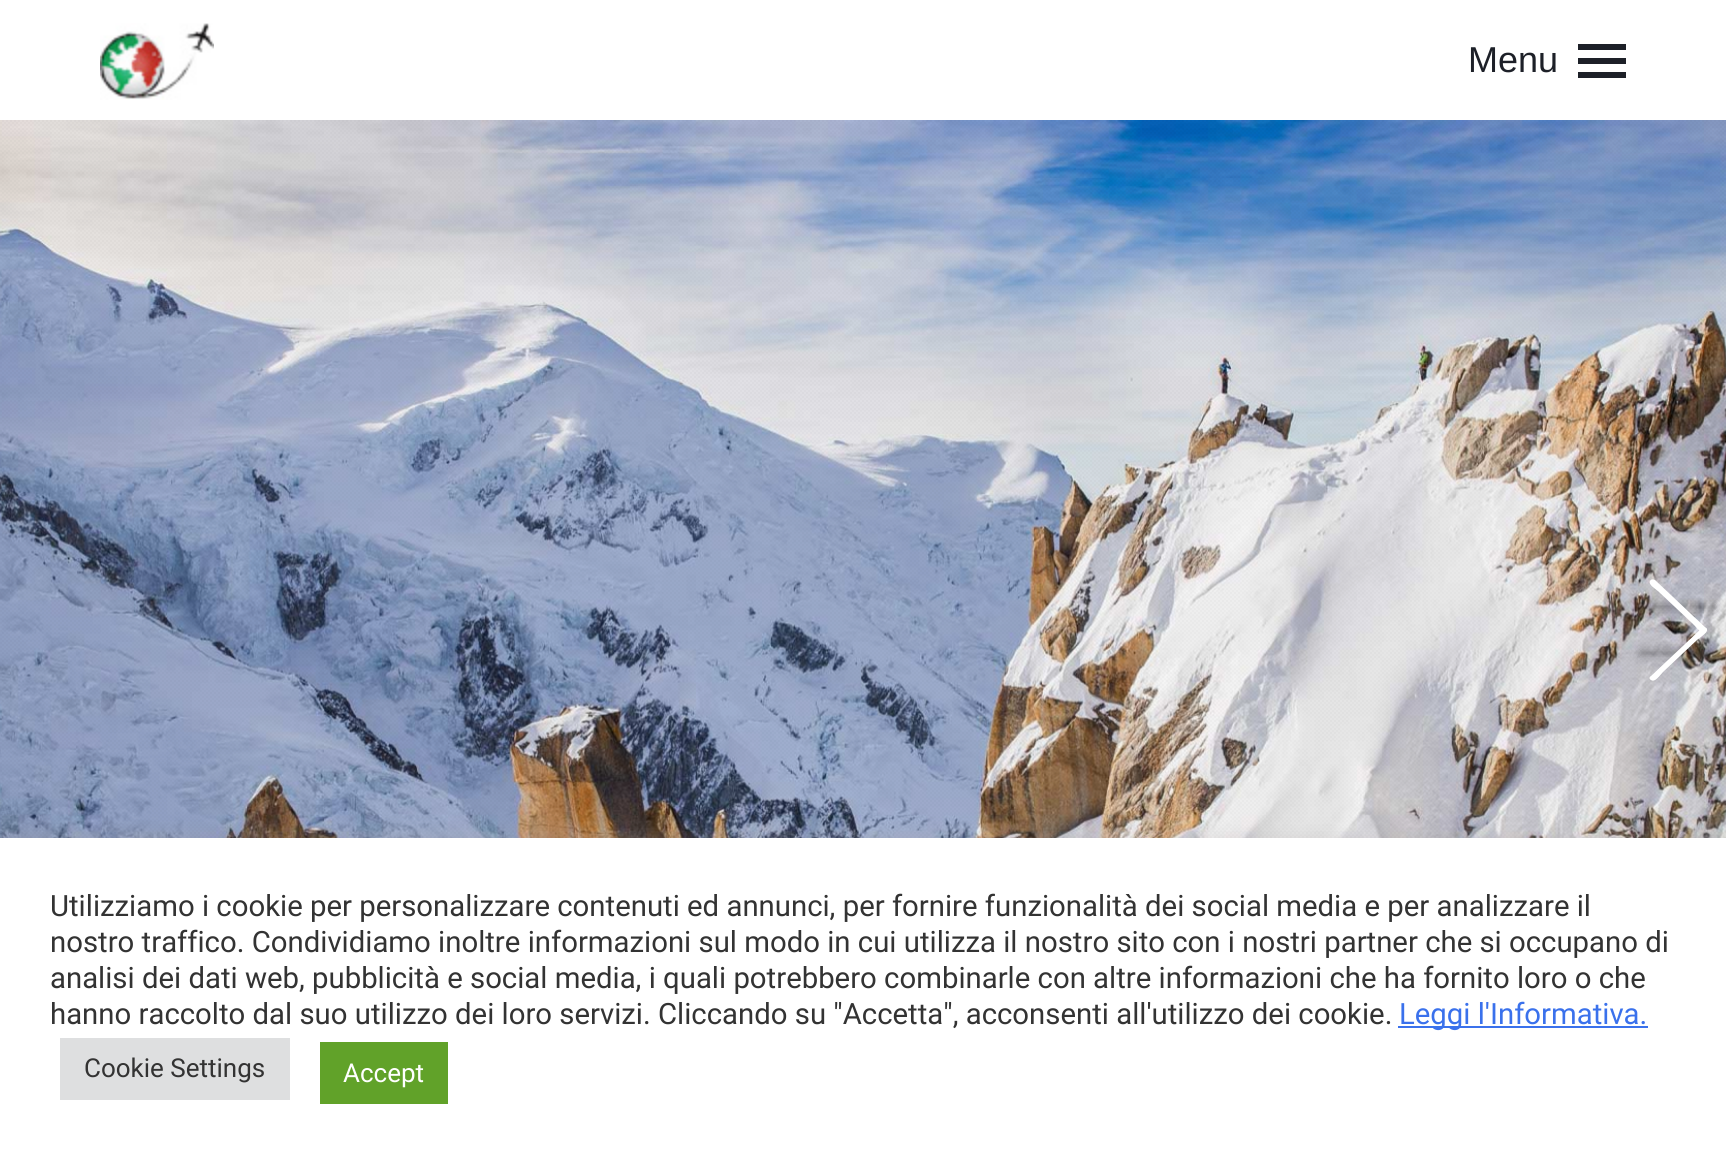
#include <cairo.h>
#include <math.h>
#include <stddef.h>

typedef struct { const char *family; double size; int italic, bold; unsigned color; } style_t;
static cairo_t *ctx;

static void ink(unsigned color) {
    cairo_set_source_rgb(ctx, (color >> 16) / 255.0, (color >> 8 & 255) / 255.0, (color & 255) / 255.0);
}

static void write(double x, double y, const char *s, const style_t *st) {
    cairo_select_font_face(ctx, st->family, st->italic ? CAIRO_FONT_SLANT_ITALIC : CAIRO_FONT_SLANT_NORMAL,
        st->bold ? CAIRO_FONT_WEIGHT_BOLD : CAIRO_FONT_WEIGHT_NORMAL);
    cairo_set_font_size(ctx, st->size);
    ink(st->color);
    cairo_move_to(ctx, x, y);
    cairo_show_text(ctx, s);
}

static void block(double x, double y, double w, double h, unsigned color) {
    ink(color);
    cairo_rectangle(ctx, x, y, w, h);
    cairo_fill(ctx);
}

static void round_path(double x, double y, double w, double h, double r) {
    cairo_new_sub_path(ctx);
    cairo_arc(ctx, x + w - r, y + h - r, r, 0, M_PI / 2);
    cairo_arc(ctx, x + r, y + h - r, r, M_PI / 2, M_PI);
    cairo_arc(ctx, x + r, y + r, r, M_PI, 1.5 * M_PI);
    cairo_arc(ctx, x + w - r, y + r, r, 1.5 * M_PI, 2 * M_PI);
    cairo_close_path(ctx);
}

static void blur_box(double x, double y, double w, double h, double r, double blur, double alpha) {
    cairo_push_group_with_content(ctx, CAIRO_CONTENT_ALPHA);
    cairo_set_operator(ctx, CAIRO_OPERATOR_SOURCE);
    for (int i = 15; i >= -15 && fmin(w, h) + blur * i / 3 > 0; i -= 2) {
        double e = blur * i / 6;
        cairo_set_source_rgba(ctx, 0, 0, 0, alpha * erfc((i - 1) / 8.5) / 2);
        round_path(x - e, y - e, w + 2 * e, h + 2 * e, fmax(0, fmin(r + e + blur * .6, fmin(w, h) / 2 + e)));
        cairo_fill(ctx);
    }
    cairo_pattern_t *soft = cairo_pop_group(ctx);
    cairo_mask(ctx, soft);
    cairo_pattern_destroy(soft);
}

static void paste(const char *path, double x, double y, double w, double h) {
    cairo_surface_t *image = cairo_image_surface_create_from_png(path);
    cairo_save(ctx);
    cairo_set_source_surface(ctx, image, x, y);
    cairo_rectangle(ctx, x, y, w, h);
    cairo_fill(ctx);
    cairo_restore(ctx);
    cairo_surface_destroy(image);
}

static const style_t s1 = {"Liberation Sans", 36, 0, 0, 0x1d2028};
static const style_t s2 = {"Roboto", 29.33, 0, 0, 0x333333};
static const style_t s3 = {"Roboto", 29.33, 0, 0, 0x3a71ec};
static const style_t s4 = {"Roboto", 26, 0, 0, 0x333333};
static const style_t s5 = {"Roboto", 26, 0, 0, 0xffffff};

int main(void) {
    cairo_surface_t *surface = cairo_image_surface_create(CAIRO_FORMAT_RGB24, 1726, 1154);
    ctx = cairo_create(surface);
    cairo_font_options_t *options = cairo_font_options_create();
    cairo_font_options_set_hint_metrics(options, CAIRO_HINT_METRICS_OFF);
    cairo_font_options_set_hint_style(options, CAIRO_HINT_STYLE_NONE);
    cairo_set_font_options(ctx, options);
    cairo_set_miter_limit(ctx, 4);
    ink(0xffffff);
    cairo_paint(ctx);
    paste("pic1.png", 100, 23, 114, 77);
    write(1468, 72, "Menu", &s1);
    block(1578, 44, 48, 6, 0x1d2028);
    block(1578, 58, 48, 6, 0x1d2028);
    block(1578, 72, 48, 6, 0x1d2028);
    paste("pic2.png", 0, 120, 1726, 718);
    paste("pic3.png", 0, 120, 1726, 718);
    ink(0x000000);
    blur_box(1640, 604, 76, 6, 3, 5, 0.3);
    ink(0xffffff);
    cairo_new_path(ctx);
    cairo_move_to(ctx, 1655, 580);
    cairo_line_to(ctx, 1707, 629);
    cairo_line_to(ctx, 1706, 632);
    cairo_curve_to(ctx, 1703, 636, 1698, 629, 1693, 624);
    cairo_line_to(ctx, 1659, 592);
    cairo_curve_to(ctx, 1656, 589, 1648, 585, 1650, 581);
    cairo_curve_to(ctx, 1651, 579, 1653, 579, 1655, 580);
    cairo_close_path(ctx);
    cairo_fill(ctx);
    ink(0x000000);
    blur_box(1640, 650, 76, 6, 3, 5, 0.3);
    ink(0xffffff);
    cairo_new_path(ctx);
    cairo_move_to(ctx, 1651, 676);
    cairo_line_to(ctx, 1703, 627);
    cairo_line_to(ctx, 1706, 628);
    cairo_curve_to(ctx, 1710, 631, 1702, 636, 1697, 640);
    cairo_line_to(ctx, 1663, 672);
    cairo_curve_to(ctx, 1660, 675, 1655, 683, 1651, 680);
    cairo_curve_to(ctx, 1649, 679, 1649, 677, 1651, 676);
    cairo_close_path(ctx);
    cairo_fill(ctx);
    ink(0xacabab);
    blur_box(0, 836, 1726, 316, 0, 10, 0.3);
    block(0, 838, 1726, 316, 0xffffff);
    write(50, 916, "Utilizziamo i cookie per personalizzare contenuti ed annunci, per fornire funzionalità dei social media e per analizzare il", &s2);
    write(50, 952, "nostro traffico. Condividiamo inoltre informazioni sul modo in cui utilizza il nostro sito con i nostri partner che si occupano di", &s2);
    write(50, 988, "analisi dei dati web, pubblicità e social media, i quali potrebbero combinarle con altre informazioni che ha fornito loro o che", &s2);
    write(50, 1024, "hanno raccolto dal suo utilizzo dei loro servizi. Cliccando su \"Accetta\", acconsenti all'utilizzo dei cookie.", &s2);
    block(1398, 1026, 250, 2, 0x3a71ec);
    write(1399, 1024, "Leggi l'Informativa.", &s3);
    block(60, 1038, 230, 62, 0xdedfe0);
    write(84, 1077, "Cookie Settings", &s4);
    block(320, 1042, 128, 62, 0x61a229);
    write(343, 1082, "Accept", &s5);
    cairo_surface_write_to_png(surface, "screenshot.png");
    cairo_font_options_destroy(options);
    cairo_destroy(ctx);
    cairo_surface_destroy(surface);
    return 0;
}
